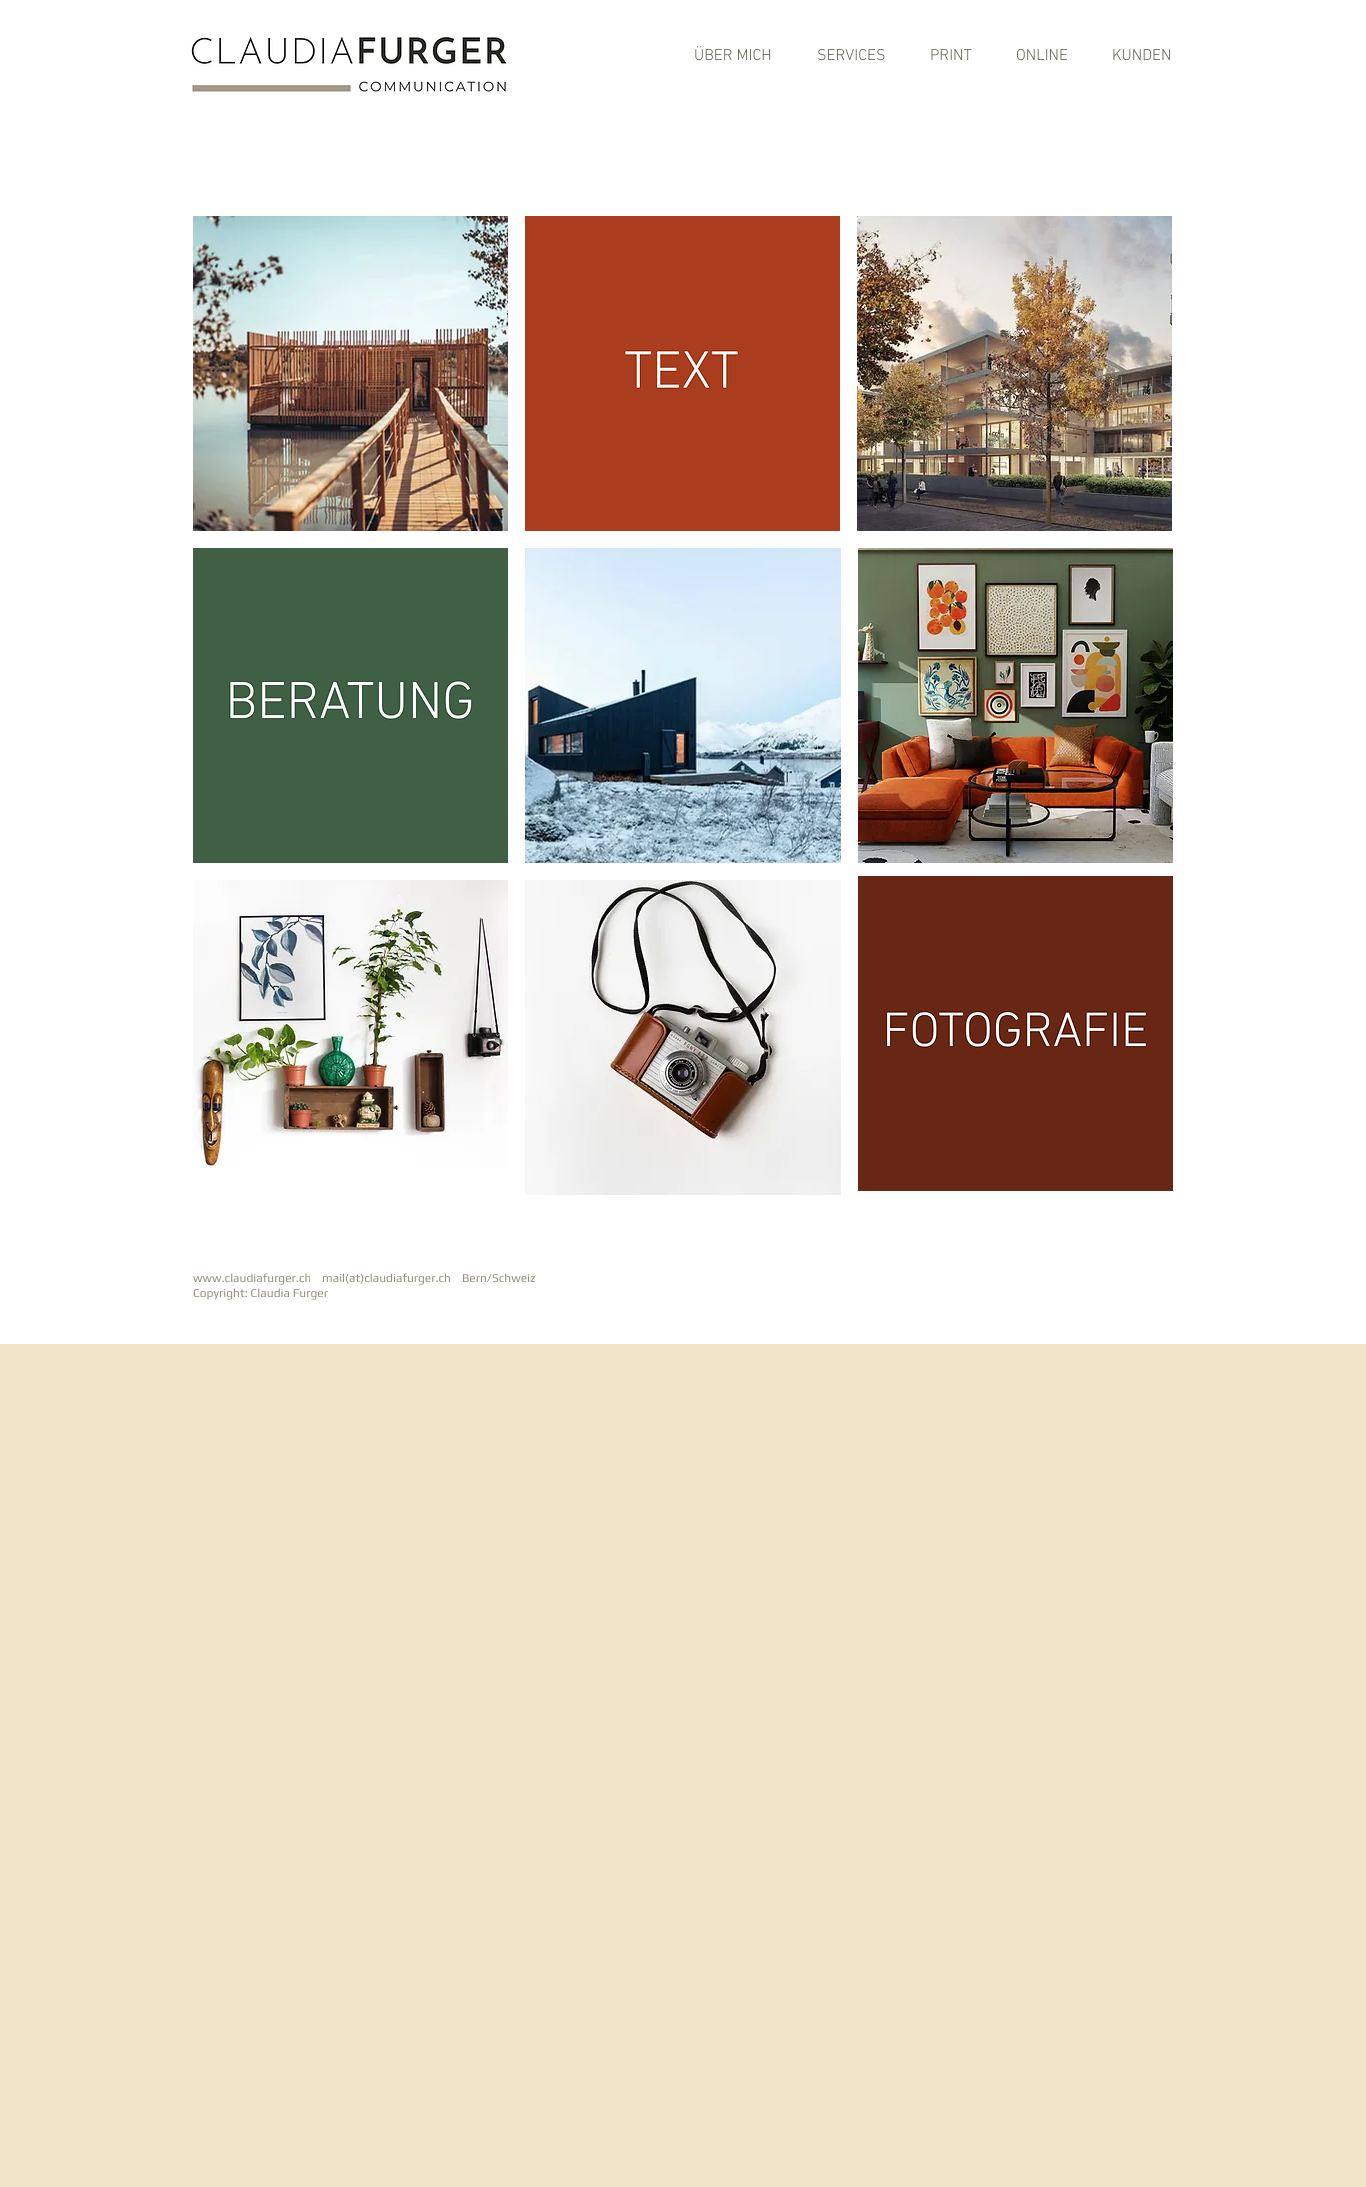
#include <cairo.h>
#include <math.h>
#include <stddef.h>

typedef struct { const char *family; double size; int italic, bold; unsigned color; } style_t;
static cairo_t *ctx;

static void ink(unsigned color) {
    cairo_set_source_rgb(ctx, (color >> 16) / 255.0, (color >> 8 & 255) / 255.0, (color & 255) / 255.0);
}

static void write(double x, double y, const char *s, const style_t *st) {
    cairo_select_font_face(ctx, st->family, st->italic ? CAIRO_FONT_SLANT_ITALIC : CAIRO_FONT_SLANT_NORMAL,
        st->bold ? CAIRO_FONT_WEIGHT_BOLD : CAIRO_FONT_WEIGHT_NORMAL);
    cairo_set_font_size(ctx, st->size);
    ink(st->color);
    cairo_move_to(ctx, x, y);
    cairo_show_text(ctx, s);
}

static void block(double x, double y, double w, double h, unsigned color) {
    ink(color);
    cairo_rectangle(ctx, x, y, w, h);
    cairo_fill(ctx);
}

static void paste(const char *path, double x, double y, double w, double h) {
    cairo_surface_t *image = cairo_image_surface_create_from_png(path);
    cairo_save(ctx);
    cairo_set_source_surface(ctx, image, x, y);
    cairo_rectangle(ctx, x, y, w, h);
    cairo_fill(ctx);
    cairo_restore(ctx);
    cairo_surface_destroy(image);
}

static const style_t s1 = {"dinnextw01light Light", 16, 0, 0, 0x676758};
static const style_t s2 = {"Play", 12, 0, 0, 0x95907d};

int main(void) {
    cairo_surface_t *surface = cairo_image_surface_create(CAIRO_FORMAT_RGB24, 1366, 2187);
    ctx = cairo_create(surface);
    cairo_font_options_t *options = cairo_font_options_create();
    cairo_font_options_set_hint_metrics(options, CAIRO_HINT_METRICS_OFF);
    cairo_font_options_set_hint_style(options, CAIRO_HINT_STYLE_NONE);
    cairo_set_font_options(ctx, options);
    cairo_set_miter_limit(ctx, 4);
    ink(0xf1e3c8);
    cairo_paint(ctx);
    block(0, 0, 1366, 1344, 0xffffff);
    paste("pic1.png", 190, 37, 318, 57);
    write(694, 60, "ÜBER MICH", &s1);
    write(817, 60, "SERVICES", &s1);
    write(930, 60, "PRINT", &s1);
    write(1016, 60, "ONLINE", &s1);
    write(1112, 60, "KUNDEN", &s1);
    paste("pic2.png", 193, 216, 315, 315);
    paste("pic3.png", 525, 216, 315, 315);
    paste("pic4.png", 857, 216, 315, 315);
    paste("pic5.png", 193, 548, 315, 315);
    paste("pic6.png", 525, 548, 316, 315);
    paste("pic7.png", 858, 548, 315, 315);
    paste("pic8.png", 193, 880, 315, 288);
    paste("pic9.png", 525, 880, 316, 315);
    paste("pic10.png", 858, 876, 315, 315);
    write(193, 1282, "www.claudiafurger.ch", &s2);
    write(322, 1282, "mail(at)claudiafurger.ch", &s2);
    write(462, 1282, "Bern/Schweiz", &s2);
    write(193, 1297, "Copyright: Claudia Furger", &s2);
    cairo_surface_write_to_png(surface, "screenshot.png");
    cairo_font_options_destroy(options);
    cairo_destroy(ctx);
    cairo_surface_destroy(surface);
    return 0;
}
